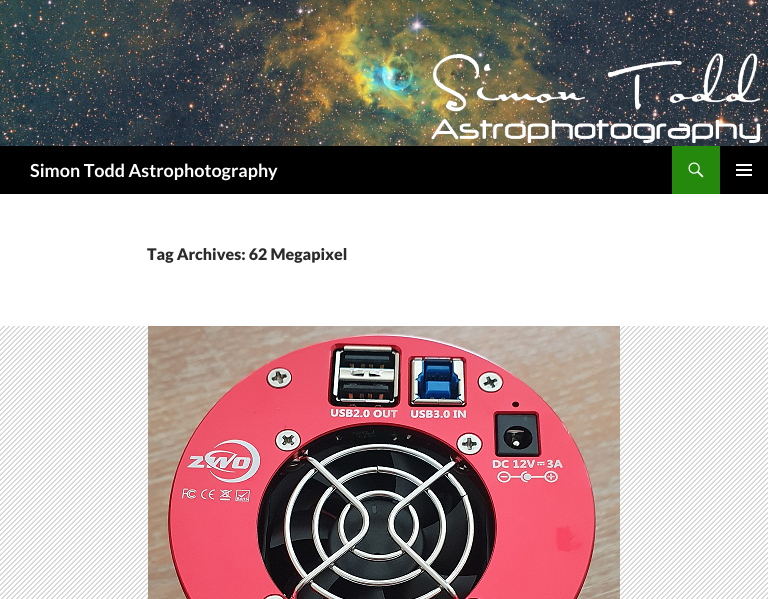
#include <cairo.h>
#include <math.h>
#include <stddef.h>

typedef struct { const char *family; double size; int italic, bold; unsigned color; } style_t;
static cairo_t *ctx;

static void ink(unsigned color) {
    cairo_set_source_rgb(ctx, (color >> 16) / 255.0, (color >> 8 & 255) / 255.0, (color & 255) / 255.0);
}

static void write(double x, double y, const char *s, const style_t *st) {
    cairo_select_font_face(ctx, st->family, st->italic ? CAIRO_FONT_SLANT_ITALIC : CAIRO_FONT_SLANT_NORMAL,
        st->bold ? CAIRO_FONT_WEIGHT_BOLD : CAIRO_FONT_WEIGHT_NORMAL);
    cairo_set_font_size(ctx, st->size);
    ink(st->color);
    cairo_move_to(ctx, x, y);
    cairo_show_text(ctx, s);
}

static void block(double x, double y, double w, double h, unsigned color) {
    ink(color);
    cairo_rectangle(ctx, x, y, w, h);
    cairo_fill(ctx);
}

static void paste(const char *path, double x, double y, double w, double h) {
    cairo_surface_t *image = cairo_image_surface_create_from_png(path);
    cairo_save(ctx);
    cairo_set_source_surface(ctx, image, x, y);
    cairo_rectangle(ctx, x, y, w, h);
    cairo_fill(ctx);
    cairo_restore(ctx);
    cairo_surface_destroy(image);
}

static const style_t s1 = {"Lato", 18, 0, 1, 0xffffff};
static const style_t s2 = {"Lato Black", 16, 0, 0, 0x2b2b2b};

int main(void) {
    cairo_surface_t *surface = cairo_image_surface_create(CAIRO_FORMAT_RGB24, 768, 599);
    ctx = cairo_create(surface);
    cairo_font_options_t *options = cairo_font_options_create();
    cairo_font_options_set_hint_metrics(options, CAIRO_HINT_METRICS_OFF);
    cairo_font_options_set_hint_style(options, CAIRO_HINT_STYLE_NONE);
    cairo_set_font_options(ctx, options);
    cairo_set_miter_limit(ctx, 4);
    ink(0xffffff);
    cairo_paint(ctx);
    paste("pic1.png", 0, 0, 768, 146);
    block(0, 146, 768, 48, 0x000000);
    write(30, 177, "Simon Todd Astrophotography", &s1);
    block(672, 146, 48, 48, 0x24890d);
    paste("pic2.png", 688, 162, 16, 16);
    paste("pic3.png", 736, 164, 16, 12);
    write(147, 260, "Tag Archives: 62 Megapixel", &s2);
    block(0, 326, 768, 273, 0xb2b2b2);
    paste("pic4.png", 0, 326, 768, 273);
    paste("pic5.png", 148, 326, 472, 273);
    cairo_surface_write_to_png(surface, "screenshot.png");
    cairo_font_options_destroy(options);
    cairo_destroy(ctx);
    cairo_surface_destroy(surface);
    return 0;
}
